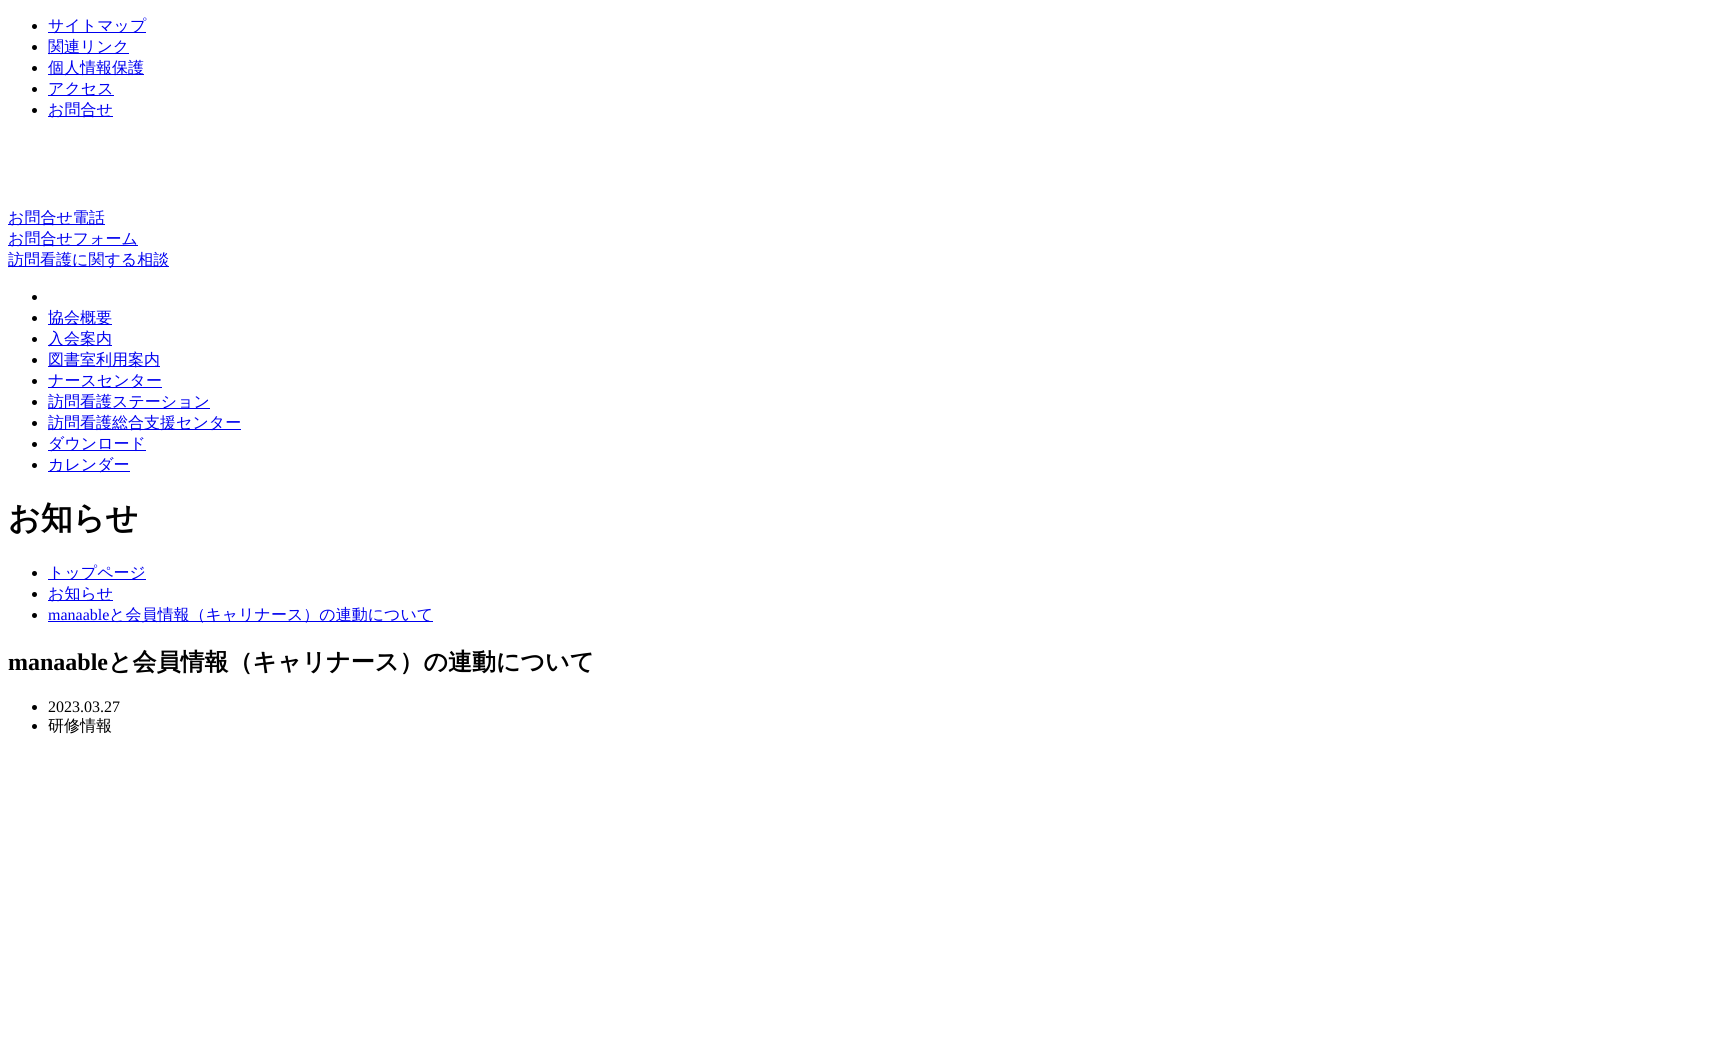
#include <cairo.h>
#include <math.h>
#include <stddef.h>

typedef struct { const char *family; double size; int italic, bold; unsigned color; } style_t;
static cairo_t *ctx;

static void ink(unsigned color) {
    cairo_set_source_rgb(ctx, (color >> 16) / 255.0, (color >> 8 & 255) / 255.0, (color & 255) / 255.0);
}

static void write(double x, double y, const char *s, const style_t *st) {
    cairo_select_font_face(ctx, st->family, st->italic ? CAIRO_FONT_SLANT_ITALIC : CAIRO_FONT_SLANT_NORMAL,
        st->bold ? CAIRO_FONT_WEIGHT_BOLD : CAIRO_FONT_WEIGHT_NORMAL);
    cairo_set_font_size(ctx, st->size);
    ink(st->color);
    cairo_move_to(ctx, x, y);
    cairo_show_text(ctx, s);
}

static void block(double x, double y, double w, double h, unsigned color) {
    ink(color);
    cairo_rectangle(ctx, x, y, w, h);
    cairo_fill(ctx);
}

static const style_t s1 = {"WenQuanYi Zen Hei Medium", 16, 0, 0, 0x0000ee};
static const style_t s2 = {"WenQuanYi Zen Hei", 32, 0, 1, 0x000000};
static const style_t s3 = {"Liberation Serif", 16, 0, 0, 0x0000ee};
static const style_t s4 = {"Liberation Serif", 24, 0, 1, 0x000000};
static const style_t s5 = {"WenQuanYi Zen Hei", 24, 0, 1, 0x000000};
static const style_t s6 = {"Liberation Serif", 16, 0, 0, 0x000000};
static const style_t s7 = {"WenQuanYi Zen Hei Medium", 16, 0, 0, 0x000000};

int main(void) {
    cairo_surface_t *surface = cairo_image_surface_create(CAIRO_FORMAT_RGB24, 1725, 1055);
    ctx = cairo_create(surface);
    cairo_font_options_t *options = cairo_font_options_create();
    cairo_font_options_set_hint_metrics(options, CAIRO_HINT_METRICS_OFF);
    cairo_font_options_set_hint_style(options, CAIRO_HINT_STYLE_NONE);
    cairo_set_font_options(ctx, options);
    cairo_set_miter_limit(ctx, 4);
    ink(0xffffff);
    cairo_paint(ctx);
    ink(0x000000);
    cairo_arc(ctx, 34.5, 26.5, 2.5, 0, 2 * M_PI);
    cairo_fill(ctx);
    block(48, 32, 98, 1, 0x0000ee);
    write(48, 31, "サイトマップ", &s1);
    ink(0x000000);
    cairo_new_path(ctx);
    cairo_arc(ctx, 34.5, 47.5, 2.5, 0, 2 * M_PI);
    cairo_fill(ctx);
    block(48, 53, 81, 1, 0x0000ee);
    write(48, 52, "関連リンク", &s1);
    ink(0x000000);
    cairo_new_path(ctx);
    cairo_arc(ctx, 34.5, 68.5, 2.5, 0, 2 * M_PI);
    cairo_fill(ctx);
    block(48, 74, 96, 1, 0x0000ee);
    write(48, 73, "個人情報保護", &s1);
    ink(0x000000);
    cairo_new_path(ctx);
    cairo_arc(ctx, 34.5, 89.5, 2.5, 0, 2 * M_PI);
    cairo_fill(ctx);
    block(48, 95, 66, 1, 0x0000ee);
    write(48, 94, "アクセス", &s1);
    ink(0x000000);
    cairo_new_path(ctx);
    cairo_arc(ctx, 34.5, 110.5, 2.5, 0, 2 * M_PI);
    cairo_fill(ctx);
    block(48, 116, 65, 1, 0x0000ee);
    write(48, 115, "お問合せ", &s1);
    block(8, 224, 97, 1, 0x0000ee);
    write(8, 223, "お問合せ電話", &s1);
    block(8, 245, 130, 1, 0x0000ee);
    write(8, 244, "お問合せフォーム", &s1);
    block(8, 266, 161, 1, 0x0000ee);
    write(8, 265, "訪問看護に関する相談", &s1);
    ink(0x000000);
    cairo_new_path(ctx);
    cairo_arc(ctx, 34.5, 297.5, 2.5, 0, 2 * M_PI);
    cairo_fill(ctx);
    cairo_arc(ctx, 34.5, 318.5, 2.5, 0, 2 * M_PI);
    cairo_fill(ctx);
    block(48, 324, 64, 1, 0x0000ee);
    write(48, 323, "協会概要", &s1);
    ink(0x000000);
    cairo_new_path(ctx);
    cairo_arc(ctx, 34.5, 339.5, 2.5, 0, 2 * M_PI);
    cairo_fill(ctx);
    block(48, 345, 64, 1, 0x0000ee);
    write(48, 344, "入会案内", &s1);
    ink(0x000000);
    cairo_new_path(ctx);
    cairo_arc(ctx, 34.5, 360.5, 2.5, 0, 2 * M_PI);
    cairo_fill(ctx);
    block(48, 366, 112, 1, 0x0000ee);
    write(48, 365, "図書室利用案内", &s1);
    ink(0x000000);
    cairo_new_path(ctx);
    cairo_arc(ctx, 34.5, 381.5, 2.5, 0, 2 * M_PI);
    cairo_fill(ctx);
    block(48, 387, 114, 1, 0x0000ee);
    write(48, 386, "ナースセンター", &s1);
    ink(0x000000);
    cairo_new_path(ctx);
    cairo_arc(ctx, 34.5, 402.5, 2.5, 0, 2 * M_PI);
    cairo_fill(ctx);
    block(48, 408, 162, 1, 0x0000ee);
    write(48, 407, "訪問看護ステーション", &s1);
    ink(0x000000);
    cairo_new_path(ctx);
    cairo_arc(ctx, 34.5, 423.5, 2.5, 0, 2 * M_PI);
    cairo_fill(ctx);
    block(48, 429, 193, 1, 0x0000ee);
    write(48, 428, "訪問看護総合支援センター", &s1);
    ink(0x000000);
    cairo_new_path(ctx);
    cairo_arc(ctx, 34.5, 444.5, 2.5, 0, 2 * M_PI);
    cairo_fill(ctx);
    block(48, 450, 98, 1, 0x0000ee);
    write(48, 449, "ダウンロード", &s1);
    ink(0x000000);
    cairo_new_path(ctx);
    cairo_arc(ctx, 34.5, 465.5, 2.5, 0, 2 * M_PI);
    cairo_fill(ctx);
    block(48, 471, 82, 1, 0x0000ee);
    write(48, 470, "カレンダー", &s1);
    write(8, 529, "お知らせ", &s2);
    cairo_new_path(ctx);
    cairo_arc(ctx, 34.5, 573.5, 2.5, 0, 2 * M_PI);
    cairo_fill(ctx);
    block(48, 579, 98, 1, 0x0000ee);
    write(48, 578, "トップページ", &s1);
    ink(0x000000);
    cairo_new_path(ctx);
    cairo_arc(ctx, 34.5, 594.5, 2.5, 0, 2 * M_PI);
    cairo_fill(ctx);
    block(48, 600, 65, 1, 0x0000ee);
    write(48, 599, "お知らせ", &s1);
    ink(0x000000);
    cairo_new_path(ctx);
    cairo_arc(ctx, 34.5, 615.5, 2.5, 0, 2 * M_PI);
    cairo_fill(ctx);
    write(48, 620, "manaable", &s3);
    block(48, 621, 385, 1, 0x0000ee);
    write(109, 620, "と会員情報（キャリナース）の連動について", &s1);
    write(8, 670, "manaable", &s4);
    write(108, 670, "と会員情報（キャリナース）の連動について", &s5);
    cairo_new_path(ctx);
    cairo_arc(ctx, 34.5, 707.5, 2.5, 0, 2 * M_PI);
    cairo_fill(ctx);
    write(48, 712, "2023.03.27", &s6);
    cairo_new_path(ctx);
    cairo_arc(ctx, 34.5, 726.5, 2.5, 0, 2 * M_PI);
    cairo_fill(ctx);
    write(48, 731, "研修情報", &s7);
    cairo_surface_write_to_png(surface, "screenshot.png");
    cairo_font_options_destroy(options);
    cairo_destroy(ctx);
    cairo_surface_destroy(surface);
    return 0;
}
